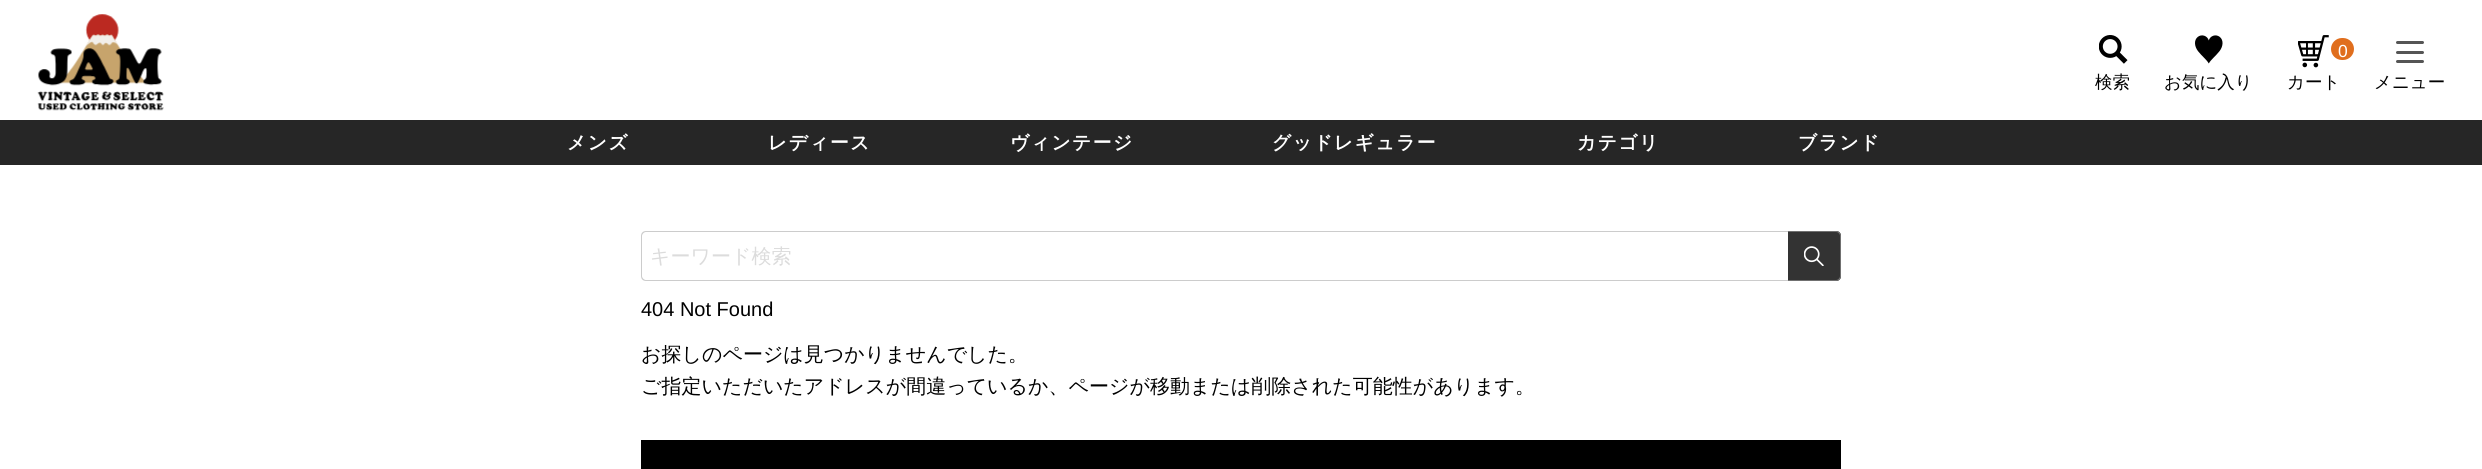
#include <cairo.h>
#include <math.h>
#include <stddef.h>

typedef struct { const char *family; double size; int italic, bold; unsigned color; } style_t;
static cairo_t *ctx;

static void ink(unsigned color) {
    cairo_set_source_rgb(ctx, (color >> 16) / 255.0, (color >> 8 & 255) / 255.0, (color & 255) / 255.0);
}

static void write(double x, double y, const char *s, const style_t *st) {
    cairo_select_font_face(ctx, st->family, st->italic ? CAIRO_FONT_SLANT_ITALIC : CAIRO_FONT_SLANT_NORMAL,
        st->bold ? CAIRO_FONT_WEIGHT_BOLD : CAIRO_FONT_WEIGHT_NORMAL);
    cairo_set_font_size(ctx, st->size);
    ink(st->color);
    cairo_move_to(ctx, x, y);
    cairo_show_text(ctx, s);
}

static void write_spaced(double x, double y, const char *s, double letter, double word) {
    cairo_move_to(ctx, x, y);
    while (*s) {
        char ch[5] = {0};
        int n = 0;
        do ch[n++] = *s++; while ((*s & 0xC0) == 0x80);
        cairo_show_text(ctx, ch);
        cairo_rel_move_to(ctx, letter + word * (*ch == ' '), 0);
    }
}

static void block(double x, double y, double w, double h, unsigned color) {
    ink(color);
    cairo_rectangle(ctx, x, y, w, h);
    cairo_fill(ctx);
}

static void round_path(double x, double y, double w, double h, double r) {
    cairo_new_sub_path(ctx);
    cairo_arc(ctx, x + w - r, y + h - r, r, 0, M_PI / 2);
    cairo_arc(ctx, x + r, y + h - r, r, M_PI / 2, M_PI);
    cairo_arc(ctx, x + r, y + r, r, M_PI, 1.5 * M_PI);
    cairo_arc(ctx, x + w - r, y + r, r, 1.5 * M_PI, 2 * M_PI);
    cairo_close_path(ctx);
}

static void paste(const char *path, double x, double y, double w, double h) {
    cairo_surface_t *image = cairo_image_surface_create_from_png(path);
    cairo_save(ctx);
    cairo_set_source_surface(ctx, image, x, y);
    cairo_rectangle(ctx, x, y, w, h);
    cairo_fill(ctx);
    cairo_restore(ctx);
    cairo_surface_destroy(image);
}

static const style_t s1 = {"WenQuanYi Zen Hei Medium", 17.5, 0, 0, 0x000000};
static const style_t s2 = {"Liberation Sans", 17.5, 0, 0, 0xffffff};
static const style_t s3 = {"WenQuanYi Zen Hei Medium", 20, 0, 0, 0xdcdcdc};
static const style_t s4 = {"Liberation Sans", 20, 0, 0, 0x000000};
static const style_t s5 = {"WenQuanYi Zen Hei Medium", 20, 0, 0, 0x000000};

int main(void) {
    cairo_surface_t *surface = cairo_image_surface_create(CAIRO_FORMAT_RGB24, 2482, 469);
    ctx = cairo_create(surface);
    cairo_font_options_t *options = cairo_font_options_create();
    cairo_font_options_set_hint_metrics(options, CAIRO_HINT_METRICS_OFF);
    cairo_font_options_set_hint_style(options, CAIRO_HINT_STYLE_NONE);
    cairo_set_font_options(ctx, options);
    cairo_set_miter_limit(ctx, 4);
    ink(0xffffff);
    cairo_paint(ctx);
    paste("pic1.png", 37, 14, 127, 97);
    paste("pic2.png", 2099, 35, 29, 29);
    write(2095, 88, "検索", &s1);
    paste("pic3.png", 2195, 35, 28, 29);
    write(2164, 88, "お気に入り", &s1);
    paste("pic4.png", 2298, 35, 31, 33);
    ink(0xe06e1d);
    round_path(2331, 38, 23, 22, 11);
    cairo_fill(ctx);
    write(2338, 57, "0", &s2);
    write(2287, 88, "カート", &s1);
    ink(0x555555);
    round_path(2396, 41, 28, 3, 1.5);
    cairo_fill(ctx);
    round_path(2396, 51, 28, 3, 1.5);
    cairo_fill(ctx);
    round_path(2396, 60, 28, 3, 1.5);
    cairo_fill(ctx);
    write(2374, 88, "メニュー", &s1);
    block(0, 120, 2482, 45, 0x262626);
    cairo_select_font_face(ctx, "WenQuanYi Zen Hei", CAIRO_FONT_SLANT_NORMAL, CAIRO_FONT_WEIGHT_BOLD);
    cairo_set_font_size(ctx, 18.75);
    ink(0xffffff);
    write_spaced(567, 149, "メンズ", 1.5, 0);
    write_spaced(768, 149, "レディース", 1.5, 0);
    write_spaced(1010, 149, "ヴィンテージ", 1.5, 0);
    write_spaced(1272, 149, "グッドレギュラー", 1.5, 0);
    write_spaced(1577, 149, "カテゴリ", 1.5, 0);
    write_spaced(1798, 149, "ブランド", 1.5, 0);
    ink(0xcccccc);
    cairo_set_fill_rule(ctx, CAIRO_FILL_RULE_EVEN_ODD);
    cairo_new_path(ctx);
    cairo_move_to(ctx, 646, 231);
    cairo_line_to(ctx, 1788, 231);
    cairo_line_to(ctx, 1788, 281);
    cairo_line_to(ctx, 646, 281);
    cairo_curve_to(ctx, 643, 281, 641, 279, 641, 276);
    cairo_line_to(ctx, 641, 236);
    cairo_curve_to(ctx, 641, 233, 643, 231, 646, 231);
    cairo_close_path(ctx);
    cairo_move_to(ctx, 646, 232);
    cairo_line_to(ctx, 1788, 232);
    cairo_line_to(ctx, 1788, 280);
    cairo_line_to(ctx, 646, 280);
    cairo_curve_to(ctx, 644, 280, 642, 278, 642, 276);
    cairo_line_to(ctx, 642, 236);
    cairo_curve_to(ctx, 642, 234, 644, 232, 646, 232);
    cairo_close_path(ctx);
    cairo_fill(ctx);
    write(650, 263, "キーワード検索", &s3);
    ink(0x333333);
    cairo_new_path(ctx);
    cairo_move_to(ctx, 1788, 231);
    cairo_line_to(ctx, 1836, 231);
    cairo_curve_to(ctx, 1839, 231, 1841, 233, 1841, 236);
    cairo_line_to(ctx, 1841, 276);
    cairo_curve_to(ctx, 1841, 279, 1839, 281, 1836, 281);
    cairo_line_to(ctx, 1788, 281);
    cairo_close_path(ctx);
    cairo_fill(ctx);
    ink(0x707070);
    cairo_new_path(ctx);
    cairo_move_to(ctx, 1788, 231);
    cairo_line_to(ctx, 1836, 231);
    cairo_curve_to(ctx, 1839, 231, 1841, 233, 1841, 236);
    cairo_line_to(ctx, 1841, 276);
    cairo_curve_to(ctx, 1841, 279, 1839, 281, 1836, 281);
    cairo_line_to(ctx, 1788, 281);
    cairo_close_path(ctx);
    cairo_move_to(ctx, 1788, 232);
    cairo_line_to(ctx, 1836, 232);
    cairo_curve_to(ctx, 1838, 232, 1840, 234, 1840, 236);
    cairo_line_to(ctx, 1840, 276);
    cairo_curve_to(ctx, 1840, 278, 1838, 280, 1836, 280);
    cairo_line_to(ctx, 1788, 280);
    cairo_close_path(ctx);
    cairo_fill(ctx);
    paste("pic5.png", 1804, 246, 20, 20);
    write(641, 316, "404 Not Found", &s4);
    write(641, 361, "お探しのページは見つかりませんでした。", &s5);
    write(641, 393, "ご指定いただいたアドレスが間違っているか、ページが移動または削除された可能性があります。", &s5);
    block(641, 440, 1200, 29, 0x000000);
    cairo_surface_write_to_png(surface, "screenshot.png");
    cairo_font_options_destroy(options);
    cairo_destroy(ctx);
    cairo_surface_destroy(surface);
    return 0;
}
